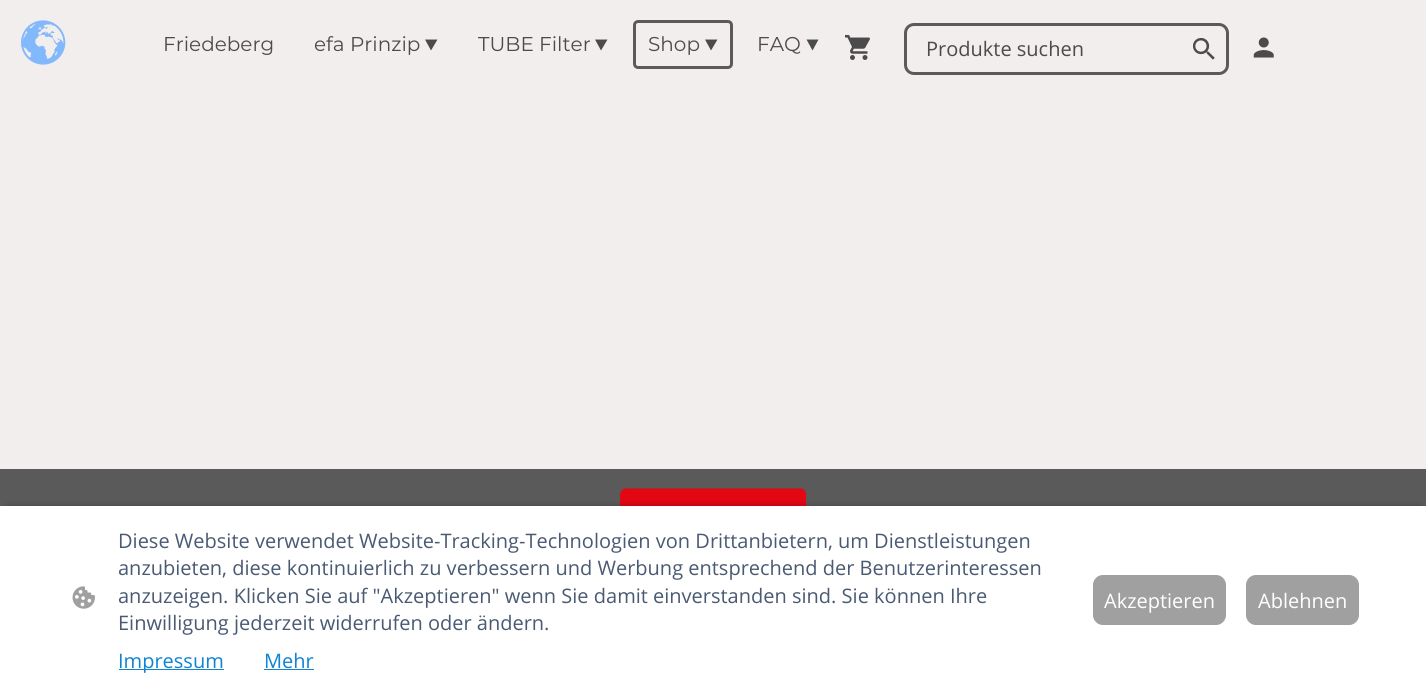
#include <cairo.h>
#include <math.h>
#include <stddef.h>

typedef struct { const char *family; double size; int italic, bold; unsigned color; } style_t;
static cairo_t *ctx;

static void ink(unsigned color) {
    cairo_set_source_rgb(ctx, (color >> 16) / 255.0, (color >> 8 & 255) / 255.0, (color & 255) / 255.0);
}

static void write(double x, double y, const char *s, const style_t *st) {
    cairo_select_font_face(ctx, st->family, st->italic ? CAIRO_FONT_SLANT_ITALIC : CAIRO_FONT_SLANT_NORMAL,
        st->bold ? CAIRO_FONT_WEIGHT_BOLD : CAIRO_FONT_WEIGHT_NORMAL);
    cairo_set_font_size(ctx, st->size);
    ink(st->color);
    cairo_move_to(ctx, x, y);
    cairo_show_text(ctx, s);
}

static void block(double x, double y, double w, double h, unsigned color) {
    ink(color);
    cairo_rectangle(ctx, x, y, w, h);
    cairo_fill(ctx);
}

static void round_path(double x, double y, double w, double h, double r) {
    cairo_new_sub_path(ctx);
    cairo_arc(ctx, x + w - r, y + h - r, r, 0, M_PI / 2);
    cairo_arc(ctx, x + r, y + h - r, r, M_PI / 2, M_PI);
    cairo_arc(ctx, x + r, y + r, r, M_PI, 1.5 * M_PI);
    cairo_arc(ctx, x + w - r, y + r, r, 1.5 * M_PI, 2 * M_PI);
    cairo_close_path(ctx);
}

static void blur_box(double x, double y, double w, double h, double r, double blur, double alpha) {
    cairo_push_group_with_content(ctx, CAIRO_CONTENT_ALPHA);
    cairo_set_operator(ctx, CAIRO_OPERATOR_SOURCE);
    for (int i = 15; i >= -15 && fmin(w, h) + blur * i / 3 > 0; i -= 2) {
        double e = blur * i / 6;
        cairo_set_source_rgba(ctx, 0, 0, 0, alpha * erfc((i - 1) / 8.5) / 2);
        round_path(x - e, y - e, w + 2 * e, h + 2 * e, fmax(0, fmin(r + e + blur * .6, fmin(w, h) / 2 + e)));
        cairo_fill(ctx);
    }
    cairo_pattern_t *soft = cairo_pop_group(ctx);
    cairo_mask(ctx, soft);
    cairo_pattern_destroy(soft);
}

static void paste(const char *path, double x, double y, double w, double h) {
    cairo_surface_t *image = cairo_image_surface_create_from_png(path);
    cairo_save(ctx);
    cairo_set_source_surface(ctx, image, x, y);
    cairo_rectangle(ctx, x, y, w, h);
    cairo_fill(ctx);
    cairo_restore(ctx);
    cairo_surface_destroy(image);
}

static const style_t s1 = {"Montserrat", 20, 0, 0, 0x4b4b4b};
static const style_t s2 = {"Open Sans", 20, 0, 0, 0x4b4b4b};
static const style_t s3 = {"Open Sans", 20, 0, 0, 0x4a5a73};
static const style_t s4 = {"Open Sans", 20, 0, 0, 0x1183d1};
static const style_t s5 = {"Open Sans", 20, 0, 0, 0xffffff};

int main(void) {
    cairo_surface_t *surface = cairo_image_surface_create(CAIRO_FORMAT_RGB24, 1426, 693);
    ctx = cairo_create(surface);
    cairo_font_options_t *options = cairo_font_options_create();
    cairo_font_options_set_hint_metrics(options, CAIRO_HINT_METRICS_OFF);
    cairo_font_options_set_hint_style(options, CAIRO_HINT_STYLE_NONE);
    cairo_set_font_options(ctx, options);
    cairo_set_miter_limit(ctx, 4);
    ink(0xf2eeee);
    cairo_paint(ctx);
    paste("pic1.png", 21, 20, 45, 45);
    write(163, 51, "Friedeberg", &s1);
    write(314, 51, "efa Prinzip", &s1);
    cairo_new_path(ctx);
    cairo_move_to(ctx, 437.5, 39.5);
    cairo_line_to(ctx, 431, 50.5);
    cairo_line_to(ctx, 425, 39.5);
    cairo_close_path(ctx);
    cairo_fill(ctx);
    write(478, 51, "TUBE Filter", &s1);
    cairo_new_path(ctx);
    cairo_move_to(ctx, 607.5, 39.5);
    cairo_line_to(ctx, 601, 50.5);
    cairo_line_to(ctx, 595, 39.5);
    cairo_close_path(ctx);
    cairo_fill(ctx);
    round_path(634.5, 21.5, 97, 46, 3.5);
    ink(0x5a5a5a);
    cairo_set_line_width(ctx, 3);
    cairo_stroke(ctx);
    write(648, 51, "Shop", &s1);
    cairo_new_path(ctx);
    cairo_move_to(ctx, 717.5, 39.5);
    cairo_line_to(ctx, 711, 50.5);
    cairo_line_to(ctx, 705, 39.5);
    cairo_close_path(ctx);
    cairo_fill(ctx);
    write(757, 51, "FAQ", &s1);
    cairo_new_path(ctx);
    cairo_move_to(ctx, 818.5, 39.5);
    cairo_line_to(ctx, 812.5, 50.5);
    cairo_line_to(ctx, 806.5, 39.5);
    cairo_close_path(ctx);
    cairo_fill(ctx);
    paste("pic2.png", 845, 35, 25, 25);
    round_path(905.5, 24.5, 322, 49, 8.5);
    ink(0x5a5a5a);
    cairo_stroke(ctx);
    write(926, 56, "Produkte suchen", &s2);
    paste("pic3.png", 1193, 38, 22, 22);
    paste("pic4.png", 1253, 37, 21, 21);
    block(0, 469, 1426, 37, 0x5a5a5a);
    paste("pic5.png", 620, 488, 187, 18);
    ink(0x000000);
    blur_box(8, 510, 1411, 173, 0, 5, 0.63);
    block(0, 506, 1426, 187, 0xffffff);
    paste("pic6.png", 72, 586, 23, 23);
    write(118, 548, "Diese Website verwendet Website-Tracking-Technologien von Drittanbietern, um Dienstleistungen", &s3);
    write(118, 575, "anzubieten, diese kontinuierlich zu verbessern und Werbung entsprechend der Benutzerinteressen", &s3);
    write(118, 603, "anzuzeigen. Klicken Sie auf \"Akzeptieren\" wenn Sie damit einverstanden sind. Sie können Ihre", &s3);
    write(118, 630, "Einwilligung jederzeit widerrufen oder ändern.", &s3);
    block(119, 669, 105, 1, 0x1183d1);
    write(118, 668, "Impressum", &s4);
    write(264, 668, "Mehr", &s4);
    block(264, 669, 50, 1, 0x1183d1);
    ink(0xa0a0a0);
    round_path(1093.5, 575.5, 132, 49, 9.5);
    cairo_fill_preserve(ctx);
    cairo_set_line_width(ctx, 1);
    cairo_stroke(ctx);
    write(1104, 608, "Akzeptieren", &s5);
    ink(0xa0a0a0);
    round_path(1246.5, 575.5, 112, 49, 9.5);
    cairo_fill_preserve(ctx);
    cairo_stroke(ctx);
    write(1258, 608, "Ablehnen", &s5);
    cairo_surface_write_to_png(surface, "screenshot.png");
    cairo_font_options_destroy(options);
    cairo_destroy(ctx);
    cairo_surface_destroy(surface);
    return 0;
}
